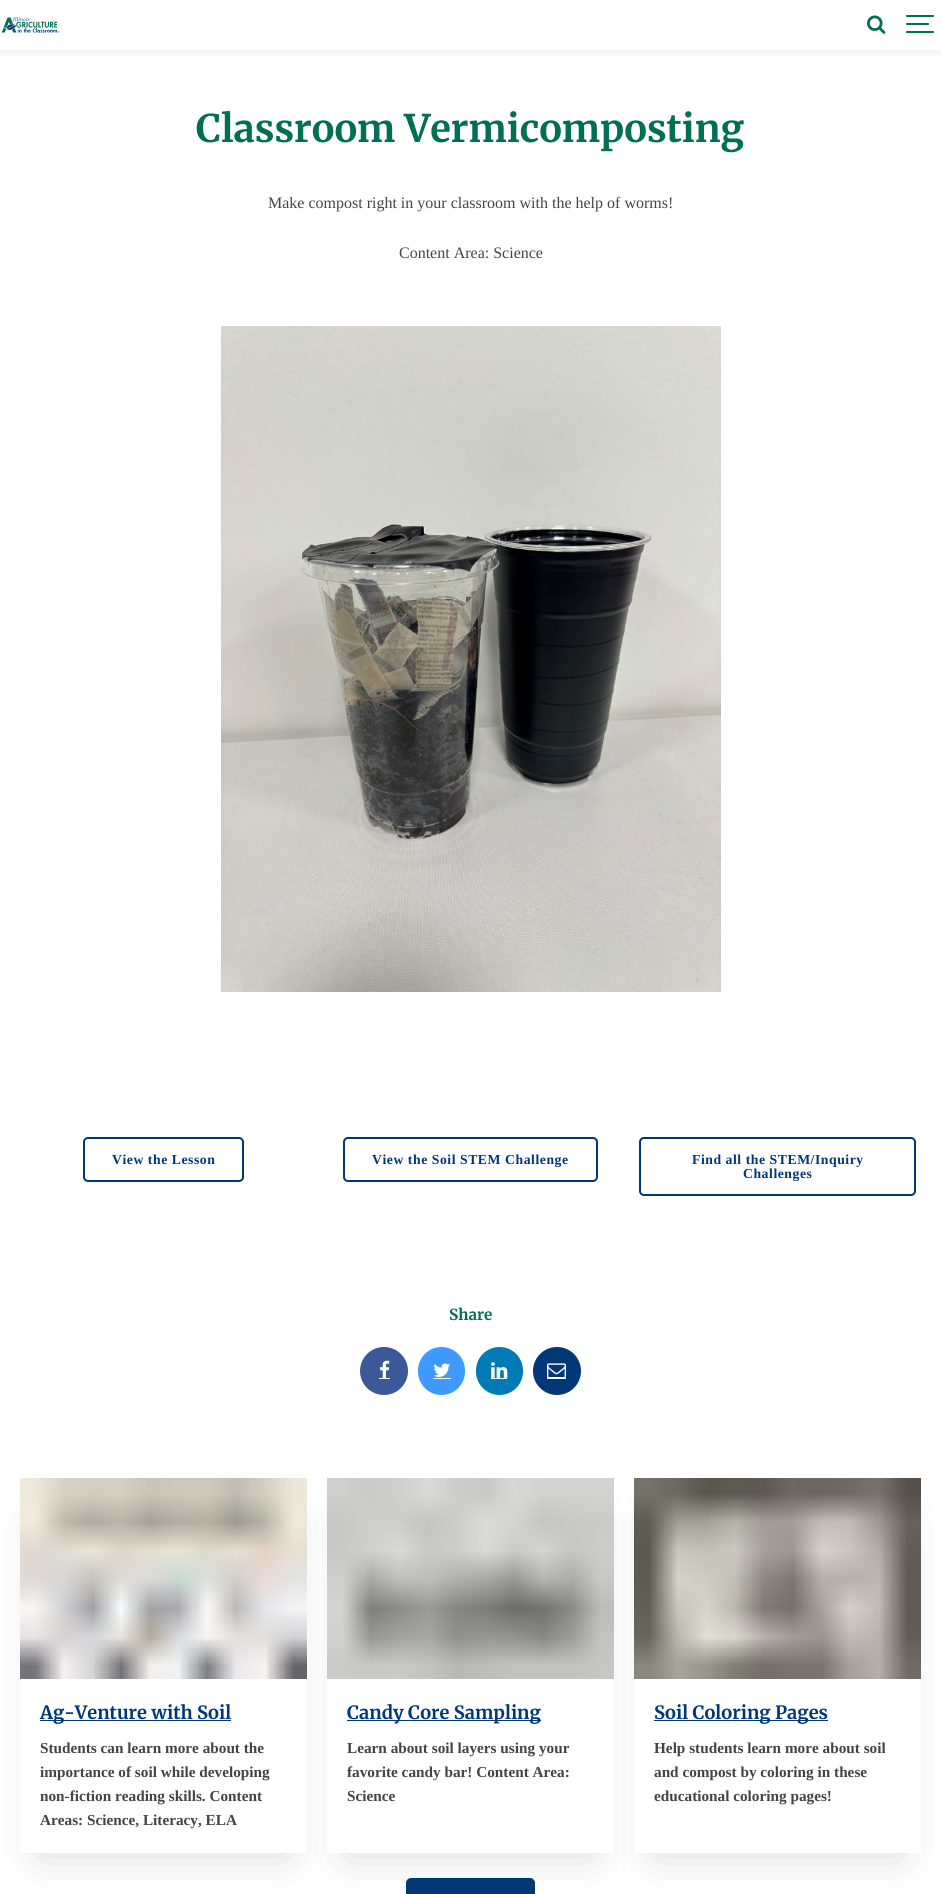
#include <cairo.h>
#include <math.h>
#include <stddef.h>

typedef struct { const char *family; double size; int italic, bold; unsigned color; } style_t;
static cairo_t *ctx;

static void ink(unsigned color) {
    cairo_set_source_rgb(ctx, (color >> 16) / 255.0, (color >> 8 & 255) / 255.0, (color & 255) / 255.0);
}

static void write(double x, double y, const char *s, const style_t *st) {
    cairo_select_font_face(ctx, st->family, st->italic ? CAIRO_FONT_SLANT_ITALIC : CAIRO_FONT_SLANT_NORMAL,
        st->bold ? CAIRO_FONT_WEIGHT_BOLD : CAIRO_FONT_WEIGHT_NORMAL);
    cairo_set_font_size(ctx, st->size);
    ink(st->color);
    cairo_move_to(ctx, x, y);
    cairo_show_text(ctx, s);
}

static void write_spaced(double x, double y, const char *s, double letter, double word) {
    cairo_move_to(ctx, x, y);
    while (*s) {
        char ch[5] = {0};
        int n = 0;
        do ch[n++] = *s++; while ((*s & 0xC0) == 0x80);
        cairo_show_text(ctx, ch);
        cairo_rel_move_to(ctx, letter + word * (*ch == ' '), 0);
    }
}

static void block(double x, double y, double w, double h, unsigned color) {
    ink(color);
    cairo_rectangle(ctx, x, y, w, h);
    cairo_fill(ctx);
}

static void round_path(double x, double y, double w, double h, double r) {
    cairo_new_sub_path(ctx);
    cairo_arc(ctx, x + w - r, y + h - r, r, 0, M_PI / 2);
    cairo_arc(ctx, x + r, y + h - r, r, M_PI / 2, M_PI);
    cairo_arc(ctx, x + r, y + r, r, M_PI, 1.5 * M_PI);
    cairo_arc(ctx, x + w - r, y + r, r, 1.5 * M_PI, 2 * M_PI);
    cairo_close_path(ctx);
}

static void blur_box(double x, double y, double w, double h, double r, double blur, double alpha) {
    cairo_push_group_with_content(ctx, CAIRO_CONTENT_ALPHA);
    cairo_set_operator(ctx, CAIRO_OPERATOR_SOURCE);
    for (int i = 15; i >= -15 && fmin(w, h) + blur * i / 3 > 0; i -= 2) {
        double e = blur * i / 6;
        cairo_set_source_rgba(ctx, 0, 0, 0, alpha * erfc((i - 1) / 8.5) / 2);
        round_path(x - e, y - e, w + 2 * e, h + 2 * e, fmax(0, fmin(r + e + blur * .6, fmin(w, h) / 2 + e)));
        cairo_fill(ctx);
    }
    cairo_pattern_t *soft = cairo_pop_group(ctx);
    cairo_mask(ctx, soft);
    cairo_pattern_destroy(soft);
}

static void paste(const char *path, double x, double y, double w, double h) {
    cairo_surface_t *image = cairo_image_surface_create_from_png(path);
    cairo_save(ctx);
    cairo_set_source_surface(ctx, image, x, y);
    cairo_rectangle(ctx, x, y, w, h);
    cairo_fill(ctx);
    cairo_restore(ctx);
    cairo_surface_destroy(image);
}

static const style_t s1 = {"Merriweather", 38, 0, 1, 0x006f53};
static const style_t s2 = {"Liberation Serif", 16, 0, 0, 0x444444};
static const style_t s3 = {"Merriweather", 15.25, 0, 1, 0x006f53};
static const style_t s4 = {"Merriweather", 18.25, 0, 1, 0x003777};
static const style_t s5 = {"Liberation Serif", 15.25, 0, 1, 0x444444};

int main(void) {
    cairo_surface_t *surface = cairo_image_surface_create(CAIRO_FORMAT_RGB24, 941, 1894);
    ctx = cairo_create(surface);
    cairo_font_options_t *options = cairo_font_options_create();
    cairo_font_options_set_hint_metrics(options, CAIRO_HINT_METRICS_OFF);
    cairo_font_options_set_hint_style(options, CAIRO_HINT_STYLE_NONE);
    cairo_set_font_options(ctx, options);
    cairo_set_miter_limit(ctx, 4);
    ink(0xffffff);
    cairo_paint(ctx);
    cairo_save(ctx);
    cairo_rectangle(ctx, 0, 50, 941, 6);
    cairo_clip(ctx);
    ink(0x000000);
    blur_box(0, 0, 941, 50, 0, 7.5, 0.1);
    cairo_restore(ctx);
    paste("pic1.png", 1, 17, 59, 16);
    paste("pic2.png", 867, 15, 19, 19);
    ink(0x006f53);
    round_path(906, 23, 23, 2, 1);
    cairo_fill(ctx);
    round_path(906, 15, 28, 2, 1);
    cairo_fill(ctx);
    round_path(906, 31, 28, 2, 1);
    cairo_fill(ctx);
    write(196, 142, "Classroom Vermicomposting", &s1);
    write(268, 208, "Make compost right in your classroom with the help of worms!", &s2);
    write(399, 258, "Content Area: Science", &s2);
    paste("pic3.png", 221, 326, 500, 666);
    round_path(84, 1138, 159, 43, 4);
    ink(0x003777);
    cairo_stroke(ctx);
    cairo_select_font_face(ctx, "Liberation Serif", CAIRO_FONT_SLANT_NORMAL, CAIRO_FONT_WEIGHT_BOLD);
    cairo_set_font_size(ctx, 13.7);
    write_spaced(112, 1164, "View the Lesson", 0.55, 0);
    round_path(344, 1138, 253, 43, 4);
    cairo_stroke(ctx);
    write_spaced(372, 1164, "View the Soil STEM Challenge", 0.55, 0);
    round_path(640, 1138, 275, 57, 4);
    cairo_stroke(ctx);
    write_spaced(692, 1164, "Find all the STEM/Inquiry", 0.55, 0);
    write_spaced(743, 1178, "Challenges", 0.55, 0);
    write(449, 1320, "Share", &s3);
    ink(0x3b5998);
    cairo_new_path(ctx);
    cairo_arc(ctx, 384, 1371, 24, 0, 2 * M_PI);
    cairo_fill(ctx);
    paste("pic4.png", 380, 1360, 10, 18);
    block(379, 1378, 11, 1, 0xffffff);
    ink(0x4099ff);
    round_path(418, 1347, 47, 48, 23.5);
    cairo_fill(ctx);
    paste("pic5.png", 433, 1363, 17, 14);
    block(433, 1378, 18, 1, 0xffffff);
    ink(0x007bb5);
    round_path(476, 1347, 47, 48, 23.5);
    cairo_fill(ctx);
    paste("pic6.png", 491, 1362, 17, 16);
    block(491, 1378, 16, 1, 0xffffff);
    ink(0x003777);
    cairo_arc(ctx, 557, 1371, 24, 0, 2 * M_PI);
    cairo_fill(ctx);
    paste("pic7.png", 547, 1363, 19, 15);
    block(547, 1378, 19, 1, 0xffffff);
    cairo_save(ctx);
    cairo_set_fill_rule(ctx, CAIRO_FILL_RULE_EVEN_ODD);
    cairo_new_path(ctx);
    cairo_move_to(ctx, 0, 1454);
    cairo_line_to(ctx, 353, 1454);
    cairo_line_to(ctx, 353, 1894);
    cairo_line_to(ctx, 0, 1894);
    cairo_close_path(ctx);
    cairo_move_to(ctx, 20, 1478);
    cairo_line_to(ctx, 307, 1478);
    cairo_line_to(ctx, 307, 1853);
    cairo_line_to(ctx, 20, 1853);
    cairo_close_path(ctx);
    cairo_clip(ctx);
    ink(0x000000);
    blur_box(40, 1520, 247, 335, 0, 21.5, 0.15);
    cairo_restore(ctx);
    paste("pic8.png", 20, 1478, 287, 201);
    block(40, 1720, 191, 1, 0x003777);
    write(40, 1719, "Ag-Venture with Soil", &s4);
    write(40, 1753, "Students can learn more about the", &s5);
    write(40, 1777, "importance of soil while developing", &s5);
    write(40, 1801, "non-fiction reading skills. Content", &s5);
    write(40, 1825, "Areas: Science, Literacy, ELA", &s5);
    cairo_save(ctx);
    cairo_set_fill_rule(ctx, CAIRO_FILL_RULE_EVEN_ODD);
    cairo_new_path(ctx);
    cairo_move_to(ctx, 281, 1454);
    cairo_line_to(ctx, 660, 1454);
    cairo_line_to(ctx, 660, 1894);
    cairo_line_to(ctx, 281, 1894);
    cairo_close_path(ctx);
    cairo_move_to(ctx, 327, 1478);
    cairo_line_to(ctx, 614, 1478);
    cairo_line_to(ctx, 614, 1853);
    cairo_line_to(ctx, 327, 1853);
    cairo_close_path(ctx);
    cairo_clip(ctx);
    ink(0x000000);
    blur_box(347, 1520, 247, 335, 0, 21.5, 0.15);
    cairo_restore(ctx);
    paste("pic9.png", 327, 1478, 287, 201);
    block(347, 1720, 194, 1, 0x003777);
    write(347, 1719, "Candy Core Sampling", &s4);
    write(347, 1753, "Learn about soil layers using your", &s5);
    write(347, 1777, "favorite candy bar! Content Area:", &s5);
    write(347, 1801, "Science", &s5);
    cairo_save(ctx);
    cairo_set_fill_rule(ctx, CAIRO_FILL_RULE_EVEN_ODD);
    cairo_new_path(ctx);
    cairo_move_to(ctx, 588, 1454);
    cairo_line_to(ctx, 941, 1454);
    cairo_line_to(ctx, 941, 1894);
    cairo_line_to(ctx, 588, 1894);
    cairo_close_path(ctx);
    cairo_move_to(ctx, 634, 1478);
    cairo_line_to(ctx, 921, 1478);
    cairo_line_to(ctx, 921, 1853);
    cairo_line_to(ctx, 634, 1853);
    cairo_close_path(ctx);
    cairo_clip(ctx);
    ink(0x000000);
    blur_box(654, 1520, 247, 335, 0, 21.5, 0.15);
    cairo_restore(ctx);
    paste("pic10.png", 634, 1478, 287, 201);
    block(654, 1720, 174, 1, 0x003777);
    write(654, 1719, "Soil Coloring Pages", &s4);
    write(654, 1753, "Help students learn more about soil", &s5);
    write(654, 1777, "and compost by coloring in these", &s5);
    write(654, 1801, "educational coloring pages!", &s5);
    ink(0x003777);
    round_path(407, 1879, 127, 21, 4);
    cairo_fill_preserve(ctx);
    cairo_stroke(ctx);
    cairo_surface_write_to_png(surface, "screenshot.png");
    cairo_font_options_destroy(options);
    cairo_destroy(ctx);
    cairo_surface_destroy(surface);
    return 0;
}
